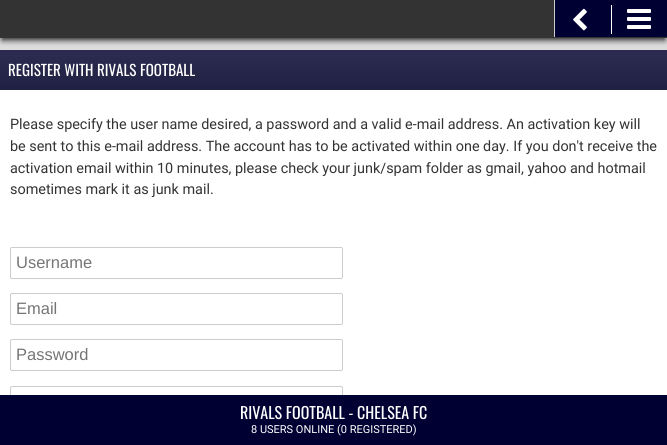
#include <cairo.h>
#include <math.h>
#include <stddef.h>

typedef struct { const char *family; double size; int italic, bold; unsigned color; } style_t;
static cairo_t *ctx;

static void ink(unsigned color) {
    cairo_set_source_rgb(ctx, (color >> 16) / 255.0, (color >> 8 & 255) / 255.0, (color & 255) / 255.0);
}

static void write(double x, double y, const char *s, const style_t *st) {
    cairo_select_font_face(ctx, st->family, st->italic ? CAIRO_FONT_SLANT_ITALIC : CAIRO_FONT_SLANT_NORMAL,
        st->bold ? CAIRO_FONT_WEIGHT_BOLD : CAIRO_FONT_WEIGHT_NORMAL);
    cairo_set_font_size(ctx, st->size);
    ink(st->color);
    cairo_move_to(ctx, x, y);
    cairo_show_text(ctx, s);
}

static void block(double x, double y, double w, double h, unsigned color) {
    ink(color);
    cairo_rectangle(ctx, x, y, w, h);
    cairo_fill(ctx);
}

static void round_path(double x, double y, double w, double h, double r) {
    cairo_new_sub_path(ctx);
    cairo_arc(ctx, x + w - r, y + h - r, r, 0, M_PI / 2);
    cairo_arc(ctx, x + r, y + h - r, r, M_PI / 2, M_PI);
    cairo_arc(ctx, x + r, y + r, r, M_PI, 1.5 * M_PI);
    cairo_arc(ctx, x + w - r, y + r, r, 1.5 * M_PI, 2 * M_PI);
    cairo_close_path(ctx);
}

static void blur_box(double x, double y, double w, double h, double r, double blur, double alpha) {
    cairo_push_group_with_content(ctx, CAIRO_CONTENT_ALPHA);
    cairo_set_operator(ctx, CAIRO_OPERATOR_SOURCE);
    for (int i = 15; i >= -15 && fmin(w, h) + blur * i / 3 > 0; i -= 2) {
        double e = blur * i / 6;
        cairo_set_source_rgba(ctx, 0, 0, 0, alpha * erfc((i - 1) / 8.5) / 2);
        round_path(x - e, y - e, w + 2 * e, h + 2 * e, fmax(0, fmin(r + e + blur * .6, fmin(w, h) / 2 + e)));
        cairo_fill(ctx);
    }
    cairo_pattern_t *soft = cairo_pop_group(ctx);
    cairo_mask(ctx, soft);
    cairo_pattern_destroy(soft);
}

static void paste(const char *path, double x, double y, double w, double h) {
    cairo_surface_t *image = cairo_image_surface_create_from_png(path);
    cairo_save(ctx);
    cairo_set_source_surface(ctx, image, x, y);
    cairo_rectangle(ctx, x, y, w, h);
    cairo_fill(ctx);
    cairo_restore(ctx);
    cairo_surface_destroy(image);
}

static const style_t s1 = {"Oswald", 15, 0, 0, 0xffffff};
static const style_t s2 = {"Roboto", 14.4, 0, 0, 0x333333};
static const style_t s3 = {"Liberation Sans", 16.5, 0, 0, 0x757575};
static const style_t s4 = {"Oswald", 16, 0, 0, 0xffffff};
static const style_t s5 = {"Roboto", 11, 0, 0, 0xffffff};

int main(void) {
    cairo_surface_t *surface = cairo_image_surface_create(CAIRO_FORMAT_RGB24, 667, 445);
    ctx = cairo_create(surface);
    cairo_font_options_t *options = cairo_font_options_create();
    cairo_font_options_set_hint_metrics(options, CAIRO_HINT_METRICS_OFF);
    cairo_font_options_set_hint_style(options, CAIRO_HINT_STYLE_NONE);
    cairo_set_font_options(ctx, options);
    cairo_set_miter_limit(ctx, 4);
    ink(0xdddddd);
    cairo_paint(ctx);
    ink(0x232323);
    blur_box(2, 6, 663, 34, 0, 3, 1);
    block(0, 0, 667, 38, 0x333333);
    block(555, 0, 112, 37, 0x000033);
    block(554, 0, 1, 37, 0xcccccc);
    paste("pic1.png", 573, 8, 14, 23);
    block(611, 5, 1, 29, 0xffffff);
    paste("pic2.png", 627, 9, 24, 20);
    block(0, 50, 667, 40, 0x000033);
    paste("pic3.png", 0, 50, 667, 40);
    write(8, 76, "REGISTER WITH RIVALS FOOTBALL", &s1);
    block(0, 90, 667, 305, 0xffffff);
    write(10, 129, "Please specify the user name desired, a password and a valid e-mail address. An activation key will", &s2);
    write(10, 151, "be sent to this e-mail address. The account has to be activated within one day. If you don't receive the", &s2);
    write(10, 173, "activation email within 10 minutes, please check your junk/spam folder as gmail, yahoo and hotmail", &s2);
    write(10, 194, "sometimes mark it as junk mail.", &s2);
    round_path(10.5, 247.5, 332, 31, 1.5);
    ink(0xcccccc);
    cairo_set_line_width(ctx, 1);
    cairo_stroke(ctx);
    write(16, 268, "Username", &s3);
    round_path(10.5, 293.5, 332, 31, 1.5);
    ink(0xcccccc);
    cairo_stroke(ctx);
    write(16, 314, "Email", &s3);
    round_path(10.5, 339.5, 332, 31, 1.5);
    ink(0xcccccc);
    cairo_stroke(ctx);
    write(16, 360, "Password", &s3);
    round_path(10.5, 386.5, 332, 31, 1.5);
    ink(0xcccccc);
    cairo_stroke(ctx);
    block(0, 395, 667, 50, 0x000033);
    write(240, 419, "RIVALS FOOTBALL - CHELSEA FC", &s4);
    write(251, 433, "8 USERS ONLINE (0 REGISTERED)", &s5);
    cairo_surface_write_to_png(surface, "screenshot.png");
    cairo_font_options_destroy(options);
    cairo_destroy(ctx);
    cairo_surface_destroy(surface);
    return 0;
}
